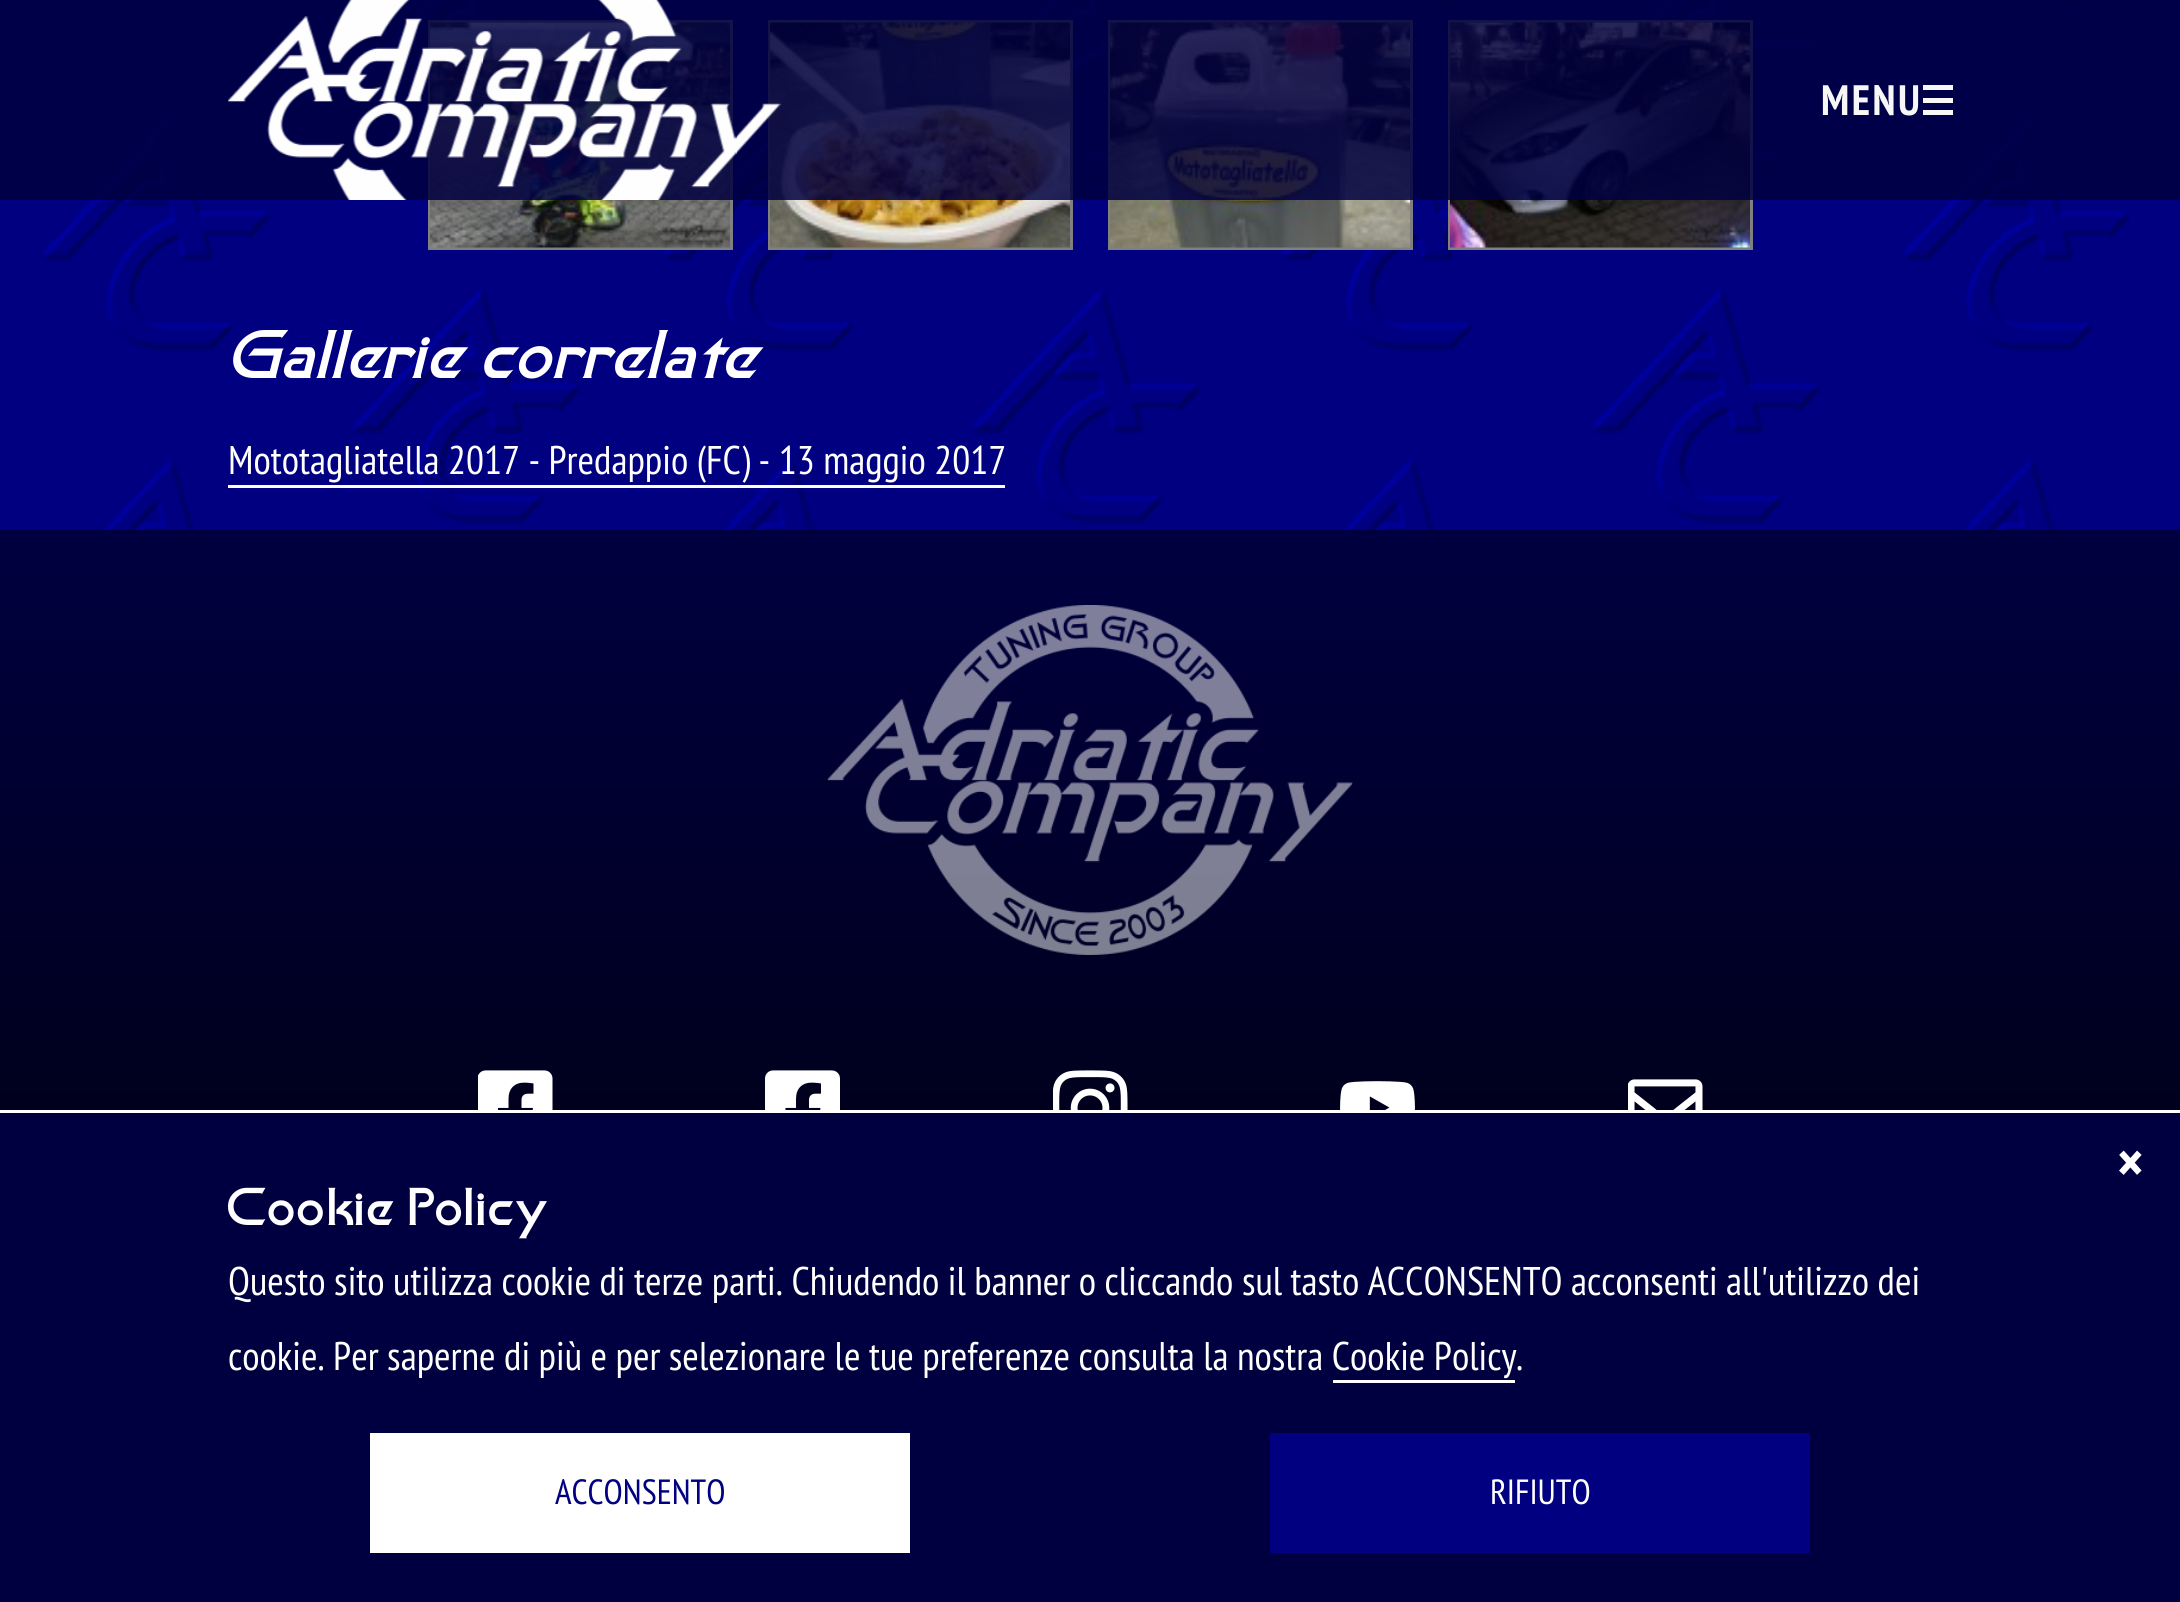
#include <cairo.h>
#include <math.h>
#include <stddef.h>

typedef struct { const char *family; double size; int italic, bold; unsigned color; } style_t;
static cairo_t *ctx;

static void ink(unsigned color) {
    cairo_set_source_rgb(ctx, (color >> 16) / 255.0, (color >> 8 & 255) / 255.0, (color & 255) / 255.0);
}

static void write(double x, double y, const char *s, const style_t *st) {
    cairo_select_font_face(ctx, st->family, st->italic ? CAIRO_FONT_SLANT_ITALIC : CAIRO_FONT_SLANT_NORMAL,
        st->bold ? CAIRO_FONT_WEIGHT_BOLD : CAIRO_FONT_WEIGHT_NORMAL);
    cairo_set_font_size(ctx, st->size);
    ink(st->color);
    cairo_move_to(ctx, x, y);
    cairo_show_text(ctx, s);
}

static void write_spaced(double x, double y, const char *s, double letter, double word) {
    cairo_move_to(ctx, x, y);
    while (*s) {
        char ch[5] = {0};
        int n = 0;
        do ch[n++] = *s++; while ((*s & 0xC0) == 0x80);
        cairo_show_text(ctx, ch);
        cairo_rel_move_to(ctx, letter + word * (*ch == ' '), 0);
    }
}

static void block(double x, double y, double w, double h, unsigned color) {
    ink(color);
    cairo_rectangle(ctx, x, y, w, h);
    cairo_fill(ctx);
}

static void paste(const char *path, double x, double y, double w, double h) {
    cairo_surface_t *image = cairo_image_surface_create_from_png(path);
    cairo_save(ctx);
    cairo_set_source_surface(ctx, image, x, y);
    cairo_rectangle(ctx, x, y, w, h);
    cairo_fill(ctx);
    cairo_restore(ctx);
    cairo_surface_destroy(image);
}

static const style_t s1 = {"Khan", 60, 1, 0, 0xffffff};
static const style_t s2 = {"PT Sans Narrow", 40, 0, 0, 0xffffff};
static const style_t s3 = {"PT Sans Narrow", 60, 0, 1, 0xffffff};
static const style_t s4 = {"Khan", 46.5, 0, 0, 0xffffff};
static const style_t s5 = {"PT Sans Narrow", 35, 0, 0, 0x000080};
static const style_t s6 = {"PT Sans Narrow", 35, 0, 0, 0xffffff};

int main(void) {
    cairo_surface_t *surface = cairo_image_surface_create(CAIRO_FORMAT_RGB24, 2180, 1602);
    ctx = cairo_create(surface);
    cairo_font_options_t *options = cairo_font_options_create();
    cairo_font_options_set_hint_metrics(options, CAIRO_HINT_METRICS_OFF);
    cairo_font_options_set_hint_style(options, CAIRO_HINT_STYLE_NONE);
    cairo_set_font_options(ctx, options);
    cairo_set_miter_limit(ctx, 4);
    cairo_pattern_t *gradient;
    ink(0xffffff);
    cairo_paint(ctx);
    block(0, 0, 2180, 530, 0x000080);
    paste("pic2.png", 42, 0, 2088, 530);
    cairo_rectangle(ctx, 429.5, 21.5, 302, 227);
    ink(0x808080);
    cairo_set_line_width(ctx, 3);
    cairo_stroke(ctx);
    paste("pic3.png", 430, 22, 300, 226);
    cairo_rectangle(ctx, 769.5, 21.5, 302, 227);
    cairo_stroke(ctx);
    paste("pic4.png", 770, 22, 300, 226);
    cairo_rectangle(ctx, 1109.5, 21.5, 302, 227);
    cairo_stroke(ctx);
    paste("pic5.png", 1110, 22, 300, 226);
    cairo_rectangle(ctx, 1449.5, 21.5, 302, 227);
    cairo_stroke(ctx);
    paste("pic6.png", 1450, 22, 300, 226);
    cairo_set_source_rgba(ctx, 0, 0, 0.251, 0.85);
    cairo_rectangle(ctx, 0, 0, 2180, 200);
    cairo_fill(ctx);
    paste("pic1.png", 228, 0, 553, 200);
    cairo_select_font_face(ctx, "PT Sans Narrow", CAIRO_FONT_SLANT_NORMAL, CAIRO_FONT_WEIGHT_BOLD);
    cairo_set_font_size(ctx, 42.5);
    ink(0xf7f7f7);
    write_spaced(1821, 115, "MENU", 2.5, 0);
    block(1923, 85, 30, 5, 0xf7f7f7);
    block(1923, 98, 30, 5, 0xf7f7f7);
    block(1923, 110, 30, 5, 0xf7f7f7);
    write(228, 378, "Gallerie correlate", &s1);
    write(228, 474, "Mototagliatella 2017 - Predappio (FC) - 13 maggio 2017", &s2);
    block(228, 485, 777, 3, 0xffffff);
    gradient = cairo_pattern_create_linear(1090, 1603, 1090, 530);
    cairo_pattern_add_color_stop_rgba(gradient, 0, 0, 0, 0, 1);
    cairo_pattern_add_color_stop_rgba(gradient, 1, 0, 0, 0.251, 1);
    cairo_set_source(ctx, gradient);
    cairo_pattern_destroy(gradient);
    cairo_rectangle(ctx, 0, 530, 2180, 580);
    cairo_fill(ctx);
    paste("pic7.png", 827, 605, 526, 350);
    paste("pic8.png", 478, 1070, 75, 40);
    paste("pic9.png", 765, 1070, 75, 40);
    paste("pic10.png", 1053, 1070, 75, 40);
    paste("pic11.png", 1340, 1081, 75, 29);
    paste("pic12.png", 1628, 1079, 75, 31);
    block(0, 1113, 2180, 489, 0x000040);
    write(2117, 1183, "×", &s3);
    write(228, 1225, "Cookie Policy", &s4);
    write(228, 1295, "Questo sito utilizza cookie di terze parti. Chiudendo il banner o cliccando sul tasto ACCONSENTO acconsenti all'utilizzo dei", &s2);
    write(228, 1370, "cookie. Per saperne di più e per selezionare le tue preferenze consulta la nostra Cookie Policy", &s2);
    write(1516, 1370, ".", &s2);
    block(1333, 1380, 182, 3, 0xffffff);
    block(370, 1433, 540, 120, 0xffffff);
    write(555, 1504, "ACCONSENTO", &s5);
    block(1270, 1433, 540, 120, 0x000080);
    write(1490, 1504, "RIFIUTO", &s6);
    cairo_surface_write_to_png(surface, "screenshot.png");
    cairo_font_options_destroy(options);
    cairo_destroy(ctx);
    cairo_surface_destroy(surface);
    return 0;
}
